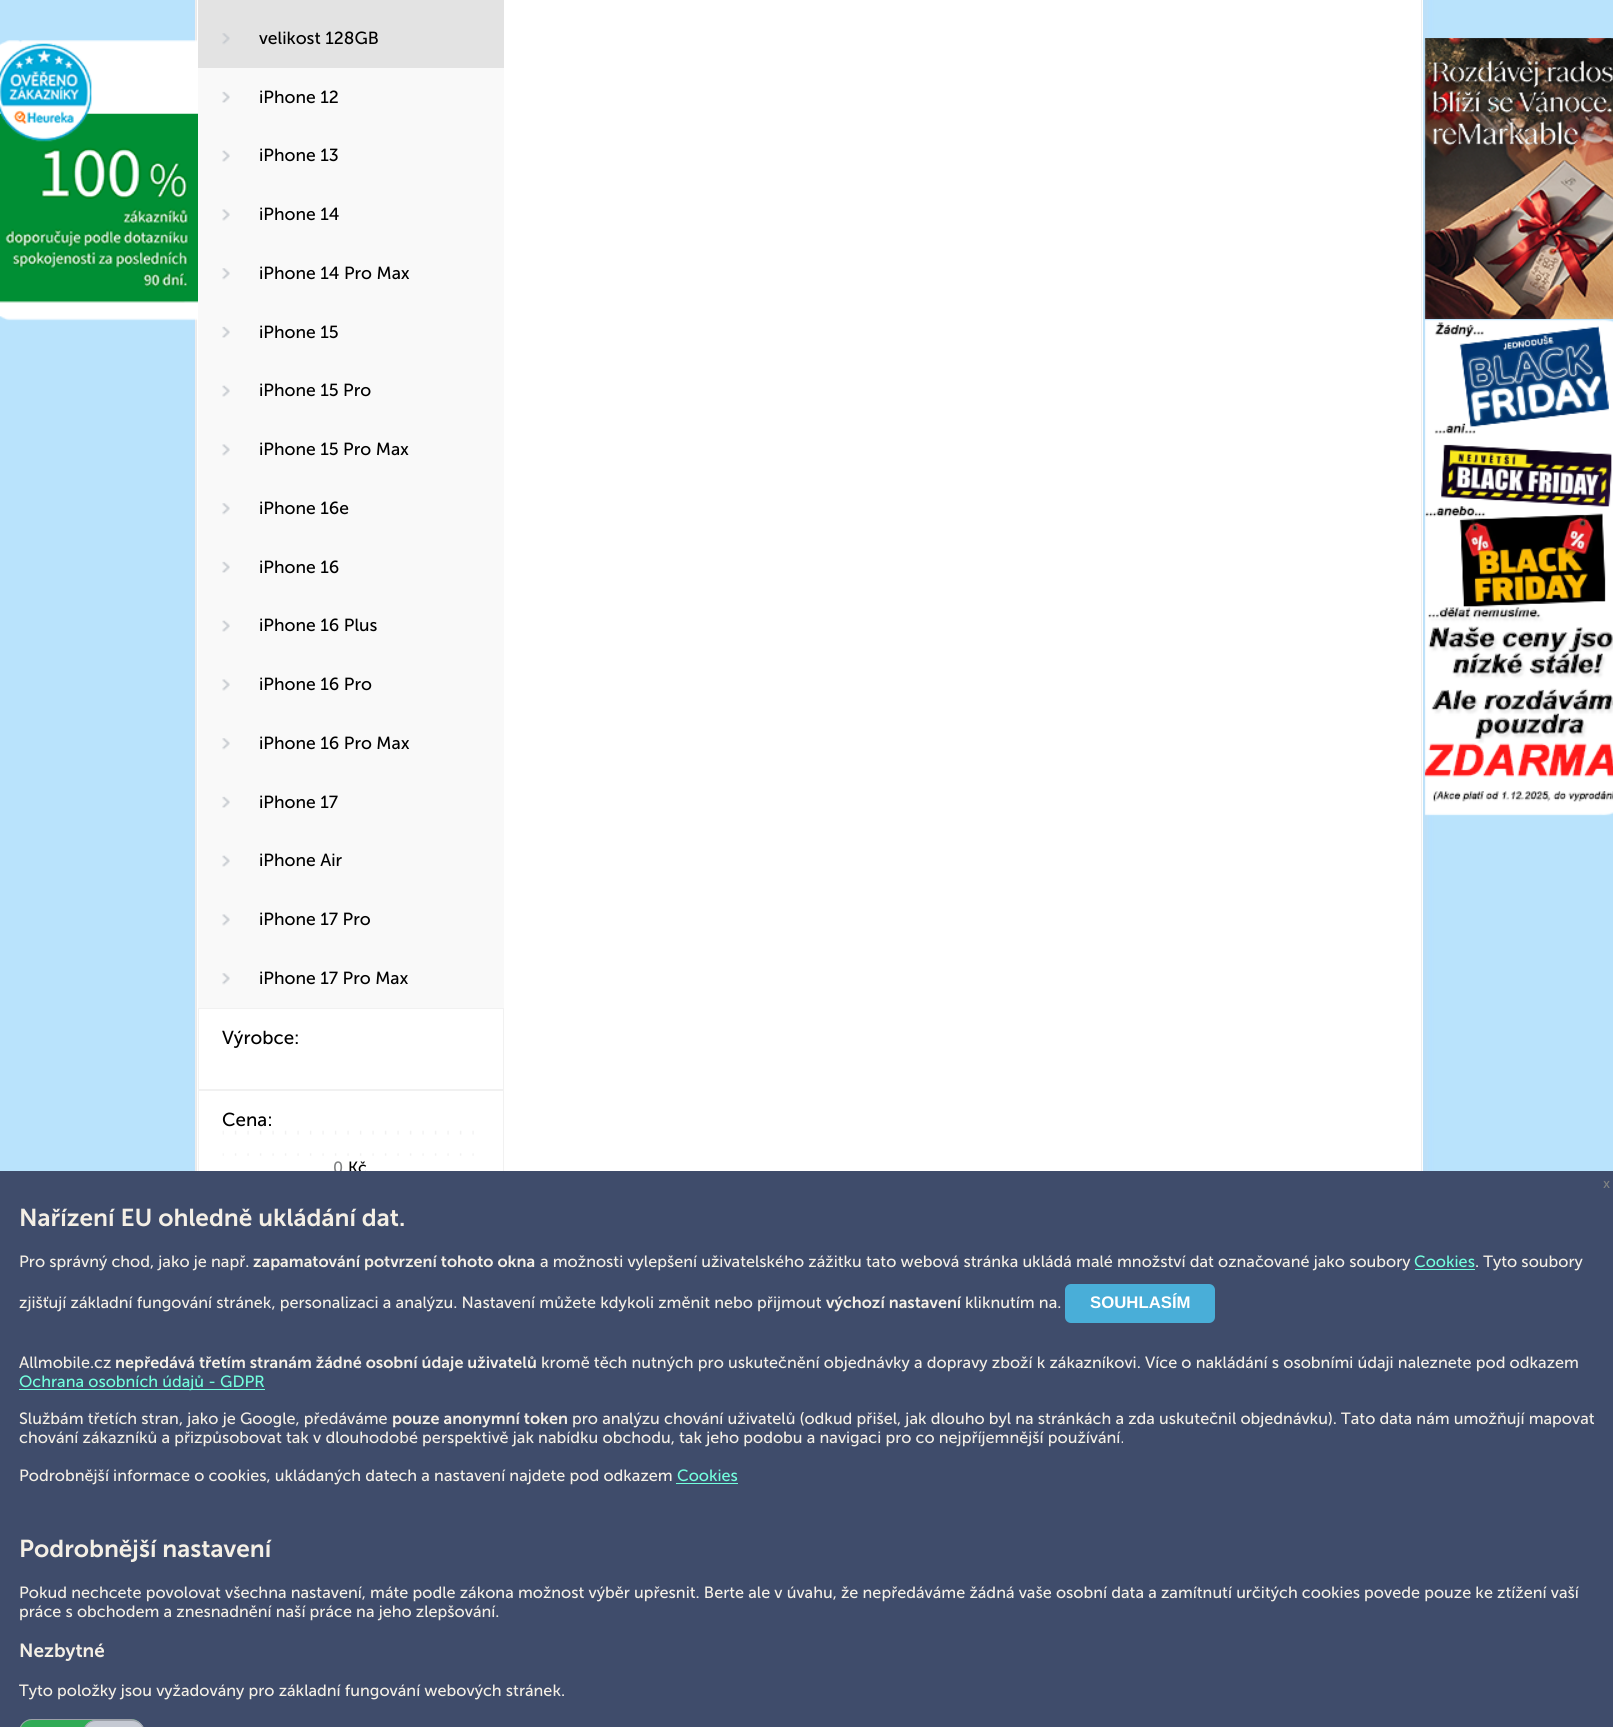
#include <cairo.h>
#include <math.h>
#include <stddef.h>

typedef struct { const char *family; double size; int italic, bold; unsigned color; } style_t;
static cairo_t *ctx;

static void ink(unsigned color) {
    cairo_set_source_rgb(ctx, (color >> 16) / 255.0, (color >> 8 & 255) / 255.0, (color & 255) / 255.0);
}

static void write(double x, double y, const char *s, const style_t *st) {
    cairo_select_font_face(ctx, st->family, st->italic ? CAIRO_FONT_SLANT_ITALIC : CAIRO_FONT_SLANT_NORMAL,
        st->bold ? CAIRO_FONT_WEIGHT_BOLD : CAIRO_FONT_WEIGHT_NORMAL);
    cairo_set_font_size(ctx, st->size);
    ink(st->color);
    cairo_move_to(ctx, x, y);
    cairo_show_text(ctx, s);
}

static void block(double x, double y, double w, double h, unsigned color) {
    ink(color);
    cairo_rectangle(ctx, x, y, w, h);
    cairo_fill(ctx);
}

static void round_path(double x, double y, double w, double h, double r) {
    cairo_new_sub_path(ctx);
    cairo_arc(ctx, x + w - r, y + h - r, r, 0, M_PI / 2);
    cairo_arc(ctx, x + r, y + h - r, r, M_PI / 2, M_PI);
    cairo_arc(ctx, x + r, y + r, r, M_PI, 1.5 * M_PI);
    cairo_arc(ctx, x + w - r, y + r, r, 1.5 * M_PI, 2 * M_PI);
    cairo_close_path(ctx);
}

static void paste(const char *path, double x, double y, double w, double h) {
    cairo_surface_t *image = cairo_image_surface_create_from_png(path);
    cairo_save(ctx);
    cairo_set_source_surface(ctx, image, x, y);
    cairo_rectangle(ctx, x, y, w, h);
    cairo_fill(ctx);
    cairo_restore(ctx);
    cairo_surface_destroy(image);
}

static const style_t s1 = {"Museo Sans", 17.5, 0, 0, 0x000000};
static const style_t s2 = {"Museo Sans", 18.75, 0, 0, 0x000000};
static const style_t s3 = {"Museo Sans", 16.25, 0, 0, 0x7f8182};
static const style_t s4 = {"Museo Sans", 16.25, 0, 0, 0x000000};
static const style_t s5 = {"Museo Sans", 14, 0, 0, 0x7f8182};
static const style_t s6 = {"Museo Sans SemiBold", 24.4, 0, 0, 0xf4efe5};
static const style_t s7 = {"Museo Sans", 16.25, 0, 0, 0xf4efe5};
static const style_t s8 = {"Museo Sans SemiBold", 16.25, 0, 0, 0xf4efe5};
static const style_t s9 = {"Museo Sans", 16.25, 0, 0, 0x73ffde};
static const style_t s10 = {"Liberation Sans", 16.75, 0, 1, 0xffffff};
static const style_t s11 = {"Museo Sans SemiBold", 19, 0, 0, 0xf4efe5};

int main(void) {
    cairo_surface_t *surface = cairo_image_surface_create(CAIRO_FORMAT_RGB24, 1613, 1727);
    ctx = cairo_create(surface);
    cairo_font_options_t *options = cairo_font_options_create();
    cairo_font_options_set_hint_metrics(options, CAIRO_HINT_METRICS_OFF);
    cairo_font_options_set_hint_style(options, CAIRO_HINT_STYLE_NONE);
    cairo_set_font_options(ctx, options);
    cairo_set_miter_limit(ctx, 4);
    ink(0xffffff);
    cairo_paint(ctx);
    paste("pic1.png", 0, 0, 1613, 1171);
    block(1411, 0, 12, 1171, 0xffffff);
    block(1421, 0, 1, 1171, 0xeeeeee);
    block(195, 0, 1, 1171, 0xeeeeee);
    block(197, 0, 15, 1171, 0xffffff);
    block(196, 0, 1, 1171, 0xeaeaea);
    paste("pic2.png", 0, 40, 198, 281);
    block(198, 0, 306, 68, 0xe3e3e3);
    paste("pic3.png", 222, 33, 8, 12);
    write(259, 44, "velikost 128GB", &s1);
    block(198, 68, 306, 940, 0xf9f9f9);
    paste("pic4.png", 222, 91, 8, 12);
    write(259, 103, "iPhone 12", &s1);
    paste("pic5.png", 222, 150, 8, 12);
    write(259, 161, "iPhone 13", &s1);
    paste("pic6.png", 222, 209, 8, 12);
    write(259, 220, "iPhone 14", &s1);
    paste("pic7.png", 222, 268, 8, 12);
    write(259, 279, "iPhone 14 Pro Max", &s1);
    paste("pic4.png", 222, 326, 8, 12);
    write(259, 338, "iPhone 15", &s1);
    paste("pic8.png", 222, 385, 8, 12);
    write(259, 396, "iPhone 15 Pro", &s1);
    paste("pic6.png", 222, 444, 8, 12);
    write(259, 455, "iPhone 15 Pro Max", &s1);
    paste("pic9.png", 222, 503, 8, 12);
    write(259, 514, "iPhone 16e", &s1);
    paste("pic4.png", 222, 561, 8, 12);
    write(259, 573, "iPhone 16", &s1);
    paste("pic8.png", 222, 620, 8, 12);
    write(259, 631, "iPhone 16 Plus", &s1);
    paste("pic6.png", 222, 679, 8, 12);
    write(259, 690, "iPhone 16 Pro", &s1);
    paste("pic9.png", 222, 738, 8, 12);
    write(259, 749, "iPhone 16 Pro Max", &s1);
    paste("pic4.png", 222, 796, 8, 12);
    write(259, 808, "iPhone 17", &s1);
    paste("pic8.png", 222, 855, 8, 12);
    write(259, 866, "iPhone Air", &s1);
    paste("pic6.png", 222, 914, 8, 12);
    write(259, 925, "iPhone 17 Pro", &s1);
    paste("pic7.png", 222, 973, 8, 12);
    write(259, 984, "iPhone 17 Pro Max", &s1);
    paste("pic10.png", 1424, 38, 189, 281);
    paste("pic11.png", 1424, 319, 189, 497);
    cairo_rectangle(ctx, 198.5, 1008.5, 305, 81);
    ink(0xf1f1f1);
    cairo_set_line_width(ctx, 1);
    cairo_stroke(ctx);
    write(222, 1044, "Výrobce:", &s2);
    cairo_rectangle(ctx, 198.5, 1090.5, 305, 104);
    ink(0xf1f1f1);
    cairo_stroke(ctx);
    write(222, 1126, "Cena:", &s2);
    paste("pic12.png", 222, 1130, 252, 26);
    write(333, 1173, "0", &s3);
    write(348, 1173, "Kč", &s4);
    block(0, 1171, 1613, 556, 0x3f4c6b);
    write(1603, 1188, "x", &s5);
    write(19, 1226, "Nařízení EU ohledně ukládání dat.", &s6);
    write(19, 1267, "Pro správný chod, jako je např.", &s7);
    write(253, 1267, "zapamatování potvrzení tohoto okna", &s8);
    write(540, 1267, "a možnosti vylepšení uživatelského zážitku tato webová stránka ukládá malé množství dat označované jako soubory", &s7);
    write(1414, 1267, "Cookies", &s9);
    block(1415, 1269, 60, 1, 0x73ffde);
    write(1475, 1267, ". Tyto soubory", &s7);
    write(19, 1308, "zjišťují základní fungování stránek, personalizaci a analýzu. Nastavení můžete kdykoli změnit nebo přijmout", &s7);
    write(826, 1308, "výchozí nastavení", &s8);
    write(965, 1308, "kliknutím na.", &s7);
    ink(0x49aed8);
    round_path(1065, 1284, 150, 39, 6);
    cairo_fill(ctx);
    write(1090, 1308, "SOUHLASÍM", &s10);
    write(19, 1368, "Allmobile.cz", &s7);
    write(115, 1368, "nepředává třetím stranám žádné osobní údaje uživatelů", &s8);
    write(541, 1368, "kromě těch nutných pro uskutečnění objednávky a dopravy zboží k zákazníkovi. Více o nakládání s osobními údaji naleznete pod odkazem", &s7);
    block(19, 1389, 246, 1, 0x73ffde);
    write(19, 1387, "Ochrana osobních údajů - GDPR", &s9);
    write(19, 1424, "Službám třetích stran, jako je Google, předáváme", &s7);
    write(392, 1424, "pouze anonymní token", &s8);
    write(572, 1424, "pro analýzu chování uživatelů (odkud přišel, jak dlouho byl na stránkách a zda uskutečnil objednávku). Tato data nám umožňují mapovat", &s7);
    write(19, 1443, "chování zákazníků a přizpůsobovat tak v dlouhodobé perspektivě jak nabídku obchodu, tak jeho podobu a navigaci pro co nejpříjemnější používání.", &s7);
    write(19, 1481, "Podrobnější informace o cookies, ukládaných datech a nastavení najdete pod odkazem", &s7);
    write(677, 1481, "Cookies", &s9);
    block(676, 1483, 62, 1, 0x73ffde);
    write(19, 1557, "Podrobnější nastavení", &s6);
    write(19, 1598, "Pokud nechcete povolovat všechna nastavení, máte podle zákona možnost výběr upřesnit. Berte ale v úvahu, že nepředáváme žádná vaše osobní data a zamítnutí určitých cookies povede pouze ke ztížení vaší", &s7);
    write(19, 1617, "práce s obchodem a znesnadnění naší práce na jeho zlepšování.", &s7);
    write(19, 1657, "Nezbytné", &s11);
    write(19, 1696, "Tyto položky jsou vyžadovány pro základní fungování webových stránek.", &s7);
    ink(0x30ab56);
    cairo_new_path(ctx);
    cairo_move_to(ctx, 32, 1719);
    cairo_line_to(ctx, 131, 1719);
    cairo_curve_to(ctx, 138, 1719, 144, 1725, 144, 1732);
    cairo_line_to(ctx, 144, 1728);
    cairo_line_to(ctx, 19, 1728);
    cairo_line_to(ctx, 19, 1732);
    cairo_curve_to(ctx, 19, 1725, 25, 1719, 32, 1719);
    cairo_close_path(ctx);
    cairo_fill(ctx);
    round_path(19.5, 1719.5, 124, 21, 12.5);
    ink(0x9ca0a9);
    cairo_stroke(ctx);
    ink(0xc5c9d3);
    cairo_new_path(ctx);
    cairo_move_to(ctx, 96, 1720);
    cairo_line_to(ctx, 132, 1720);
    cairo_curve_to(ctx, 139, 1720, 145, 1726, 145, 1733);
    cairo_line_to(ctx, 145, 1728);
    cairo_line_to(ctx, 83, 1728);
    cairo_line_to(ctx, 83, 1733);
    cairo_curve_to(ctx, 83, 1726, 89, 1720, 96, 1720);
    cairo_close_path(ctx);
    cairo_fill(ctx);
    round_path(83.5, 1720.5, 61, 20, 12.5);
    ink(0x9ca0a9);
    cairo_stroke(ctx);
    cairo_surface_write_to_png(surface, "screenshot.png");
    cairo_font_options_destroy(options);
    cairo_destroy(ctx);
    cairo_surface_destroy(surface);
    return 0;
}
